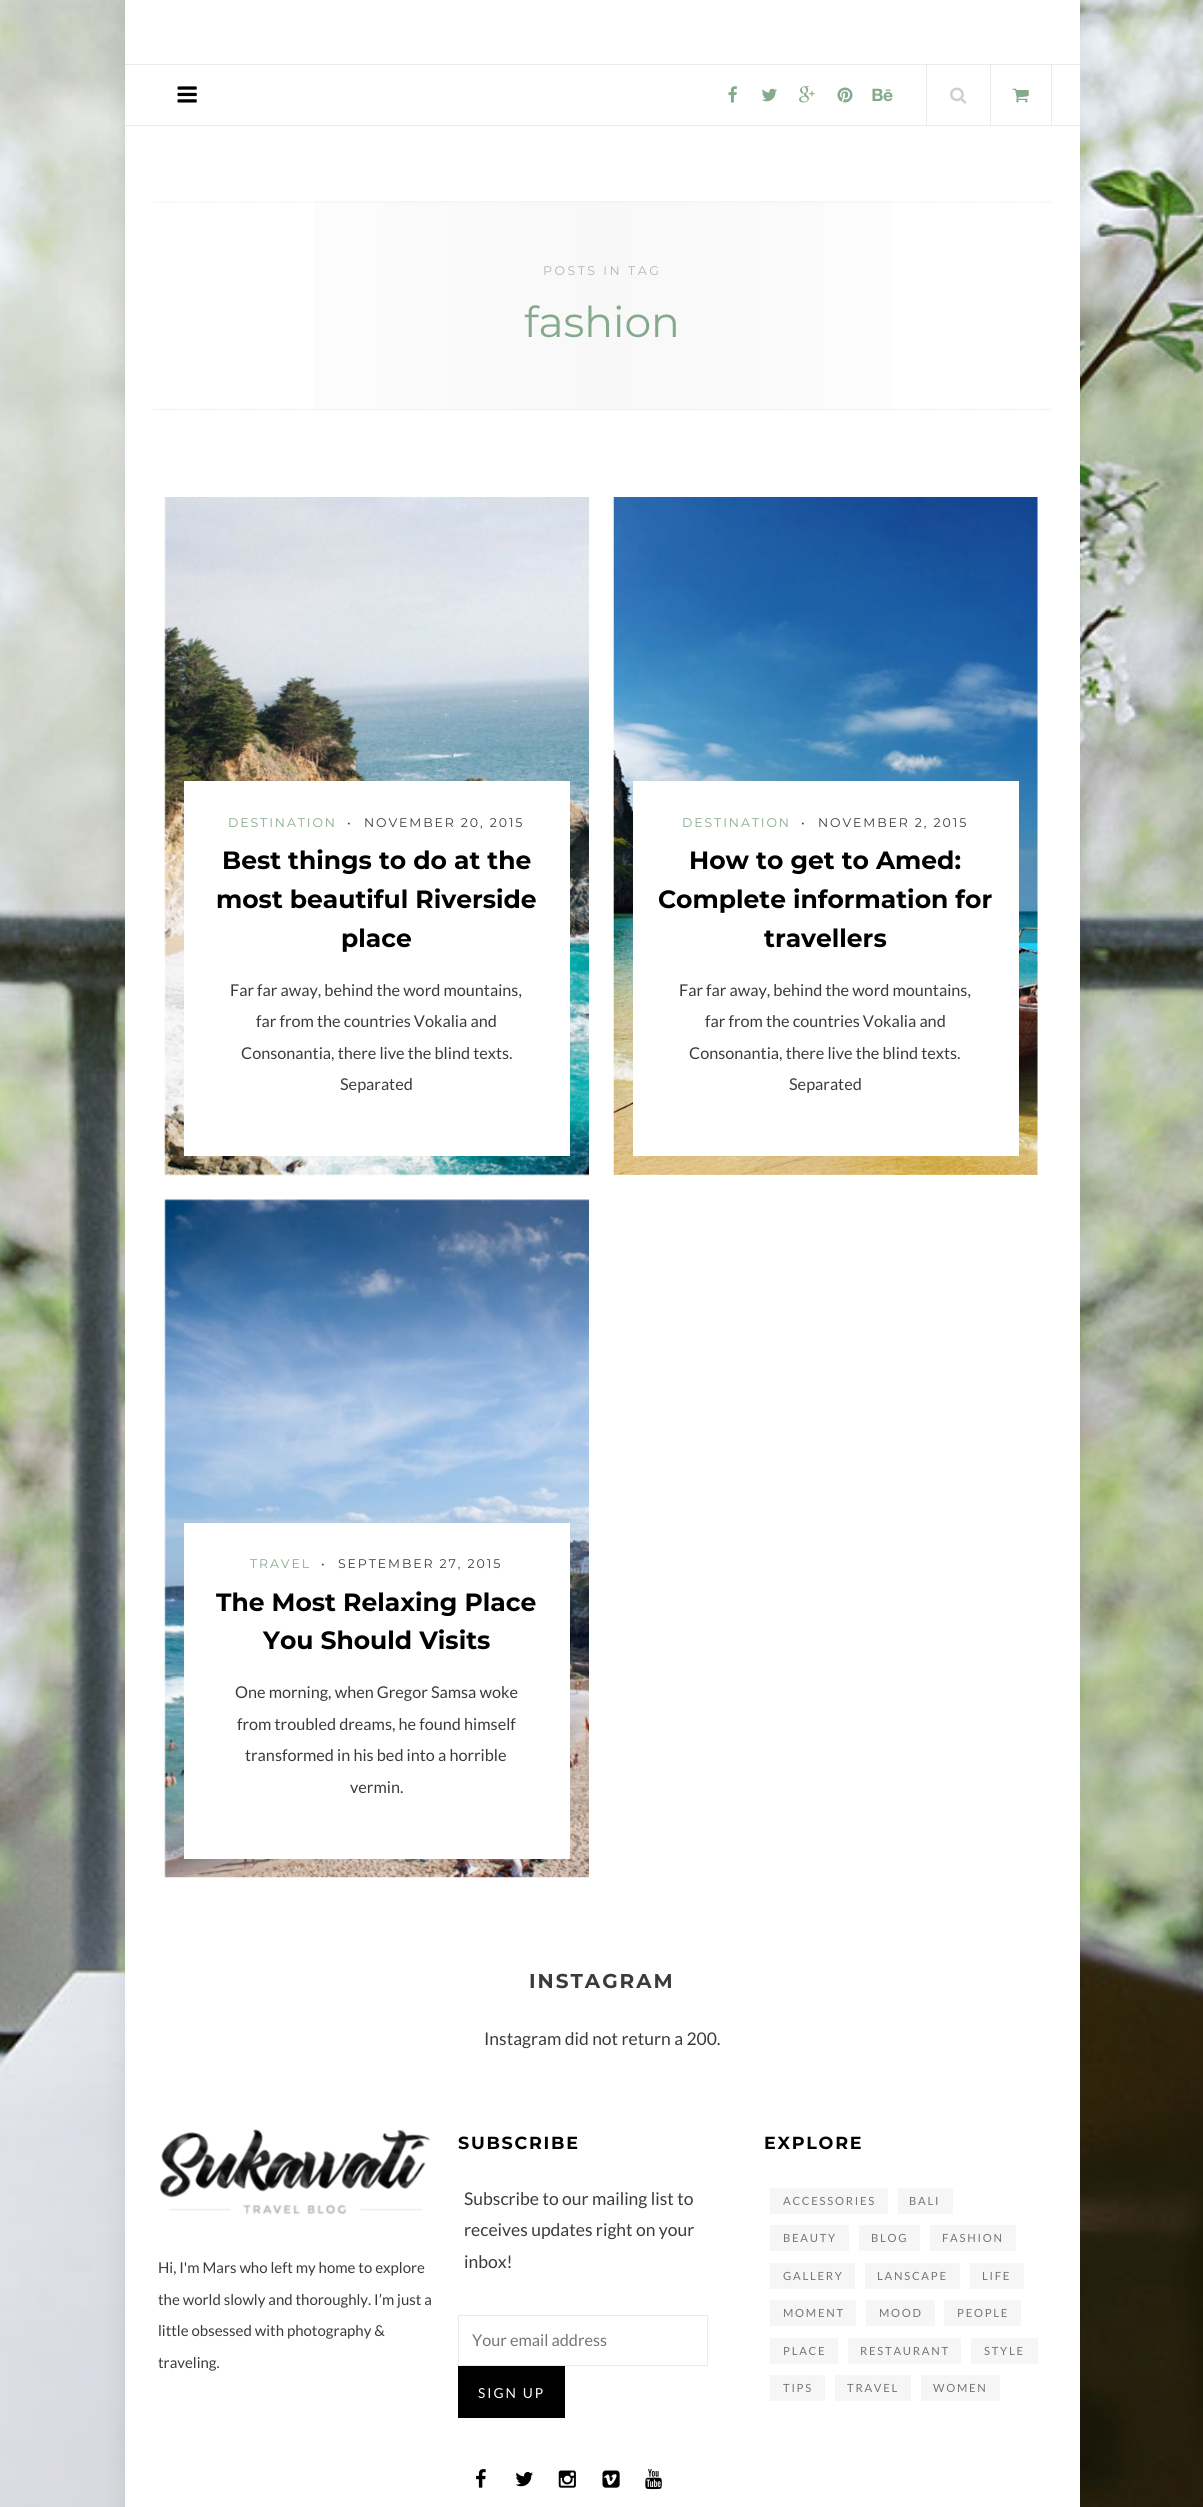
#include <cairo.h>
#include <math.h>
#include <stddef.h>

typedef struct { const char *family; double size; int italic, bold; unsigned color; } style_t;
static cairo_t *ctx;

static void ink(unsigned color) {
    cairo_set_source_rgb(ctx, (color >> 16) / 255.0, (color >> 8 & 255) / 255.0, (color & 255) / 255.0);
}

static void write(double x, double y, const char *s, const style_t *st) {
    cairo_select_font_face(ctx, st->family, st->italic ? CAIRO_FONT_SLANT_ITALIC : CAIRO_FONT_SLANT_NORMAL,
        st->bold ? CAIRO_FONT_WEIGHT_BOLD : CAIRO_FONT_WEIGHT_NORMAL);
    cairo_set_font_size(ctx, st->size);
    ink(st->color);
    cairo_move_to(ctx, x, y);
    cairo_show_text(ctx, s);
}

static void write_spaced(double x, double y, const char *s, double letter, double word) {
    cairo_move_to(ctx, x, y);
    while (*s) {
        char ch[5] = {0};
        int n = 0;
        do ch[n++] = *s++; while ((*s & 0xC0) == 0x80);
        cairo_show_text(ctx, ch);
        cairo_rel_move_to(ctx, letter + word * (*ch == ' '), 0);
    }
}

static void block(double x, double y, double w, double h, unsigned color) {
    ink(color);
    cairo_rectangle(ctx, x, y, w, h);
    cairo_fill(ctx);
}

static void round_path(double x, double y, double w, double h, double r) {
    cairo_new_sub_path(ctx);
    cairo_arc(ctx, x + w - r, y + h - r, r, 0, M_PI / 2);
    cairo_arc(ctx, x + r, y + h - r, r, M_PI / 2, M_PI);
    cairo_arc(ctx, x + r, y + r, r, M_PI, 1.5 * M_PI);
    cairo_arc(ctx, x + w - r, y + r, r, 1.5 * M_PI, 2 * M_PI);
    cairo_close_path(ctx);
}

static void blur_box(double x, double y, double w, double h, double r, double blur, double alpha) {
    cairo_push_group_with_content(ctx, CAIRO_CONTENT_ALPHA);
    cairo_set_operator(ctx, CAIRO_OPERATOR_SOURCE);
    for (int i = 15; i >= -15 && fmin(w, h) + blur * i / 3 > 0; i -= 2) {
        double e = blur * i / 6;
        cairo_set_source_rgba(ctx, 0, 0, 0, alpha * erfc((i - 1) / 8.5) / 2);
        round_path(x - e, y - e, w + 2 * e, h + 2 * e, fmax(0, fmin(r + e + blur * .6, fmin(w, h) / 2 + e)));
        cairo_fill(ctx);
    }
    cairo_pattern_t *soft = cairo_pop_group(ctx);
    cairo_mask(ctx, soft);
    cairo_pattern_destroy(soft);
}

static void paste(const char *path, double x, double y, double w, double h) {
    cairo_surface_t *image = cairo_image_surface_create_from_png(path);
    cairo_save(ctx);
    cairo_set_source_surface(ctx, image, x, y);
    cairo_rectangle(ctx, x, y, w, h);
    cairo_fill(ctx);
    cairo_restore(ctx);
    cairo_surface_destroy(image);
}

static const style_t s1 = {"Montserrat", 42.5, 0, 0, 0x84a98c};
static const style_t s2 = {"Montserrat", 25, 0, 1, 0x000000};
static const style_t s3 = {"Lato", 16.25, 0, 0, 0x3b3b3b};
static const style_t s4 = {"Lato", 17.5, 0, 0, 0x3b3b3b};
static const style_t s5 = {"Lato", 15, 0, 0, 0x3b3b3b};
static const style_t s6 = {"Lato", 16.25, 0, 0, 0x757575};

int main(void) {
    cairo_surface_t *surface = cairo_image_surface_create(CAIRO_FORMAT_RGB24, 1203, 2507);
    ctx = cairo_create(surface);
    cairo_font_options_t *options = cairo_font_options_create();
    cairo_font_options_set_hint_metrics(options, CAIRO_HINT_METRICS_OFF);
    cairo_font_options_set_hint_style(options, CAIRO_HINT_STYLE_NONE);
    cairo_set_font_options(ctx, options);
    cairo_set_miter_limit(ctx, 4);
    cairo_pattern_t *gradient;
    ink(0xffffff);
    cairo_paint(ctx);
    paste("pic1.png", 0, 0, 1203, 2507);
    ink(0x000000);
    blur_box(125, -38, 955, 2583, 0, 12.5, 0.1);
    block(125, 0, 955, 2507, 0xffffff);
    block(125, 64, 955, 1, 0xeaeaea);
    block(125, 125, 955, 1, 0xeaeaea);
    paste("pic2.png", 177, 86, 20, 17);
    paste("pic3.png", 728, 86, 9, 17);
    paste("pic4.png", 762, 88, 15, 14);
    paste("pic5.png", 799, 86, 16, 17);
    paste("pic6.png", 837, 87, 16, 16);
    paste("pic7.png", 872, 88, 21, 14);
    block(926, 65, 1, 60, 0xeaeaea);
    paste("pic8.png", 950, 87, 17, 17);
    block(1051, 65, 1, 60, 0xeaeaea);
    block(990, 65, 1, 60, 0xeaeaea);
    paste("pic9.png", 1012, 88, 17, 15);
    gradient = cairo_pattern_create_linear(153, 306, 1053, 306);
    cairo_pattern_add_color_stop_rgba(gradient, 0, 1, 1, 1, 1);
    cairo_pattern_add_color_stop_rgba(gradient, 0.5, 0.973, 0.973, 0.973, 1);
    cairo_pattern_add_color_stop_rgba(gradient, 1, 1, 1, 1, 1);
    cairo_set_source(ctx, gradient);
    cairo_pattern_destroy(gradient);
    cairo_rectangle(ctx, 314, 201, 578, 209);
    cairo_fill(ctx);
    cairo_new_path(ctx);
    cairo_move_to(ctx, 152.5, 202);
    cairo_line_to(ctx, 1052.5, 202);
    ink(0xeaeaea);
    cairo_set_line_width(ctx, 1.2);
    cairo_set_dash(ctx, (double[]){1.25, 1.25}, 2, 0);
    cairo_stroke(ctx);
    cairo_new_path(ctx);
    cairo_move_to(ctx, 152.5, 409.5);
    cairo_line_to(ctx, 1052.5, 409.5);
    cairo_stroke(ctx);
    cairo_select_font_face(ctx, "Montserrat", CAIRO_FONT_SLANT_NORMAL, CAIRO_FONT_WEIGHT_NORMAL);
    cairo_set_font_size(ctx, 12.5);
    ink(0xb3b3b3);
    write_spaced(543, 275, "POSTS IN TAG", 2.5, 0);
    write(524, 337, "fashion", &s1);
    paste("pic10.png", 164, 497, 425, 679);
    block(184, 781, 386, 375, 0xffffff);
    cairo_set_font_size(ctx, 12.5);
    ink(0x84a98c);
    write_spaced(228, 827, "DESTINATION", 1.9, 0);
    ink(0x3b3b3b);
    write_spaced(347, 827, "•", 1.9, 0);
    write_spaced(364, 827, "NOVEMBER 20, 2015", 1.9, 0);
    write(222, 869, "Best things to do at the", &s2);
    write(216, 908, "most beautiful Riverside", &s2);
    write(341, 947, "place", &s2);
    write(230, 996, "Far far away, behind the word mountains,", &s3);
    write(256, 1027, "far from the countries Vokalia and", &s3);
    write(241, 1059, "Consonantia, there live the blind texts.", &s3);
    write(340, 1090, "Separated", &s3);
    paste("pic11.png", 613, 497, 425, 678);
    block(633, 781, 386, 375, 0xffffff);
    cairo_select_font_face(ctx, "Montserrat", CAIRO_FONT_SLANT_NORMAL, CAIRO_FONT_WEIGHT_NORMAL);
    cairo_set_font_size(ctx, 12.5);
    ink(0x84a98c);
    write_spaced(682, 827, "DESTINATION", 1.9, 0);
    ink(0x3b3b3b);
    write_spaced(801, 827, "•", 1.9, 0);
    write_spaced(818, 827, "NOVEMBER 2, 2015", 1.9, 0);
    write(689, 869, "How to get to Amed:", &s2);
    write(658, 908, "Complete information for", &s2);
    write(764, 947, "travellers", &s2);
    write(679, 996, "Far far away, behind the word mountains,", &s3);
    write(705, 1027, "far from the countries Vokalia and", &s3);
    write(689, 1059, "Consonantia, there live the blind texts.", &s3);
    write(789, 1090, "Separated", &s3);
    paste("pic12.png", 164, 1199, 425, 679);
    block(184, 1523, 386, 336, 0xffffff);
    cairo_select_font_face(ctx, "Montserrat", CAIRO_FONT_SLANT_NORMAL, CAIRO_FONT_WEIGHT_NORMAL);
    cairo_set_font_size(ctx, 12.5);
    ink(0x84a98c);
    write_spaced(250, 1568, "TRAVEL", 1.9, 0);
    ink(0x3b3b3b);
    write_spaced(321, 1568, "•", 1.9, 0);
    write_spaced(338, 1568, "SEPTEMBER 27, 2015", 1.9, 0);
    write(216, 1611, "The Most Relaxing Place", &s2);
    write(263, 1649, "You Should Visits", &s2);
    write(235, 1698, "One morning, when Gregor Samsa woke", &s3);
    write(237, 1730, "from troubled dreams, he found himself", &s3);
    write(245, 1761, "transformed in his bed into a horrible", &s3);
    write(350, 1793, "vermin.", &s3);
    cairo_select_font_face(ctx, "Montserrat", CAIRO_FONT_SLANT_NORMAL, CAIRO_FONT_WEIGHT_BOLD);
    cairo_set_font_size(ctx, 20);
    write_spaced(529, 1988, "INSTAGRAM", 2, 0);
    write(484, 2045, "Instagram did not return a 200.", &s4);
    paste("pic13.png", 160, 2129, 271, 86);
    write(158, 2273, "Hi, I'm Mars who left my home to explore", &s5);
    write(158, 2305, "the world slowly and thoroughly. I’m just a", &s5);
    write(158, 2336, "little obsessed with photography &", &s5);
    write(158, 2368, "traveling.", &s5);
    cairo_select_font_face(ctx, "Montserrat", CAIRO_FONT_SLANT_NORMAL, CAIRO_FONT_WEIGHT_BOLD);
    cairo_set_font_size(ctx, 17.5);
    ink(0x000000);
    write_spaced(458, 2149, "SUBSCRIBE", 1.75, 0);
    write(464, 2205, "Subscribe to our mailing list to", &s4);
    write(464, 2236, "receives updates right on your", &s4);
    write(464, 2268, "inbox!", &s4);
    cairo_rectangle(ctx, 458.5, 2315.5, 249, 50);
    ink(0xeaeaea);
    cairo_set_line_width(ctx, 1);
    cairo_set_dash(ctx, NULL, 0, 0);
    cairo_stroke(ctx);
    write(472, 2346, "Your email address", &s6);
    block(458, 2366, 107, 52, 0x000000);
    cairo_set_font_size(ctx, 13.75);
    ink(0xffffff);
    write_spaced(478, 2398, "SIGN UP", 2, 0);
    paste("pic14.png", 476, 2469, 10, 19);
    paste("pic15.png", 515, 2472, 18, 15);
    paste("pic16.png", 558, 2470, 18, 18);
    paste("pic17.png", 602, 2470, 18, 18);
    paste("pic18.png", 645, 2469, 17, 21);
    cairo_select_font_face(ctx, "Montserrat", CAIRO_FONT_SLANT_NORMAL, CAIRO_FONT_WEIGHT_BOLD);
    cairo_set_font_size(ctx, 17.5);
    ink(0x000000);
    write_spaced(764, 2149, "EXPLORE", 1.75, 0);
    block(770, 2188, 118, 26, 0xf6f6f6);
    cairo_select_font_face(ctx, "Lato", CAIRO_FONT_SLANT_NORMAL, CAIRO_FONT_WEIGHT_NORMAL);
    cairo_set_font_size(ctx, 11.25);
    ink(0x757575);
    write_spaced(783, 2205, "ACCESSORIES", 1.75, 0);
    block(898, 2188, 55, 26, 0xf6f6f6);
    ink(0x757575);
    write_spaced(909, 2205, "BALI", 1.75, 0);
    block(770, 2225, 79, 26, 0xf6f6f6);
    ink(0x757575);
    write_spaced(783, 2242, "BEAUTY", 1.75, 0);
    block(859, 2225, 61, 26, 0xf6f6f6);
    ink(0x757575);
    write_spaced(871, 2242, "BLOG", 1.75, 0);
    block(930, 2225, 86, 26, 0xf6f6f6);
    ink(0x757575);
    write_spaced(942, 2242, "FASHION", 1.75, 0);
    block(770, 2263, 85, 26, 0xf6f6f6);
    ink(0x757575);
    write_spaced(783, 2280, "GALLERY", 1.75, 0);
    block(865, 2263, 95, 26, 0xf6f6f6);
    ink(0x757575);
    write_spaced(877, 2280, "LANSCAPE", 1.75, 0);
    block(970, 2263, 54, 26, 0xf6f6f6);
    ink(0x757575);
    write_spaced(982, 2280, "LIFE", 1.75, 0);
    block(770, 2300, 86, 26, 0xf6f6f6);
    ink(0x757575);
    write_spaced(783, 2317, "MOMENT", 1.75, 0);
    block(866, 2300, 69, 26, 0xf6f6f6);
    ink(0x757575);
    write_spaced(879, 2317, "MOOD", 1.75, 0);
    block(944, 2300, 77, 26, 0xf6f6f6);
    ink(0x757575);
    write_spaced(957, 2317, "PEOPLE", 1.75, 0);
    block(770, 2338, 68, 26, 0xf6f6f6);
    ink(0x757575);
    write_spaced(783, 2355, "PLACE", 1.75, 0);
    block(848, 2338, 113, 26, 0xf6f6f6);
    ink(0x757575);
    write_spaced(860, 2355, "RESTAURANT", 1.75, 0);
    block(971, 2338, 67, 26, 0xf6f6f6);
    ink(0x757575);
    write_spaced(984, 2355, "STYLE", 1.75, 0);
    block(770, 2375, 55, 26, 0xf6f6f6);
    ink(0x757575);
    write_spaced(783, 2392, "TIPS", 1.75, 0);
    block(835, 2375, 76, 26, 0xf6f6f6);
    ink(0x757575);
    write_spaced(847, 2392, "TRAVEL", 1.75, 0);
    block(921, 2375, 79, 26, 0xf6f6f6);
    ink(0x757575);
    write_spaced(933, 2392, "WOMEN", 1.75, 0);
    cairo_surface_write_to_png(surface, "screenshot.png");
    cairo_font_options_destroy(options);
    cairo_destroy(ctx);
    cairo_surface_destroy(surface);
    return 0;
}
